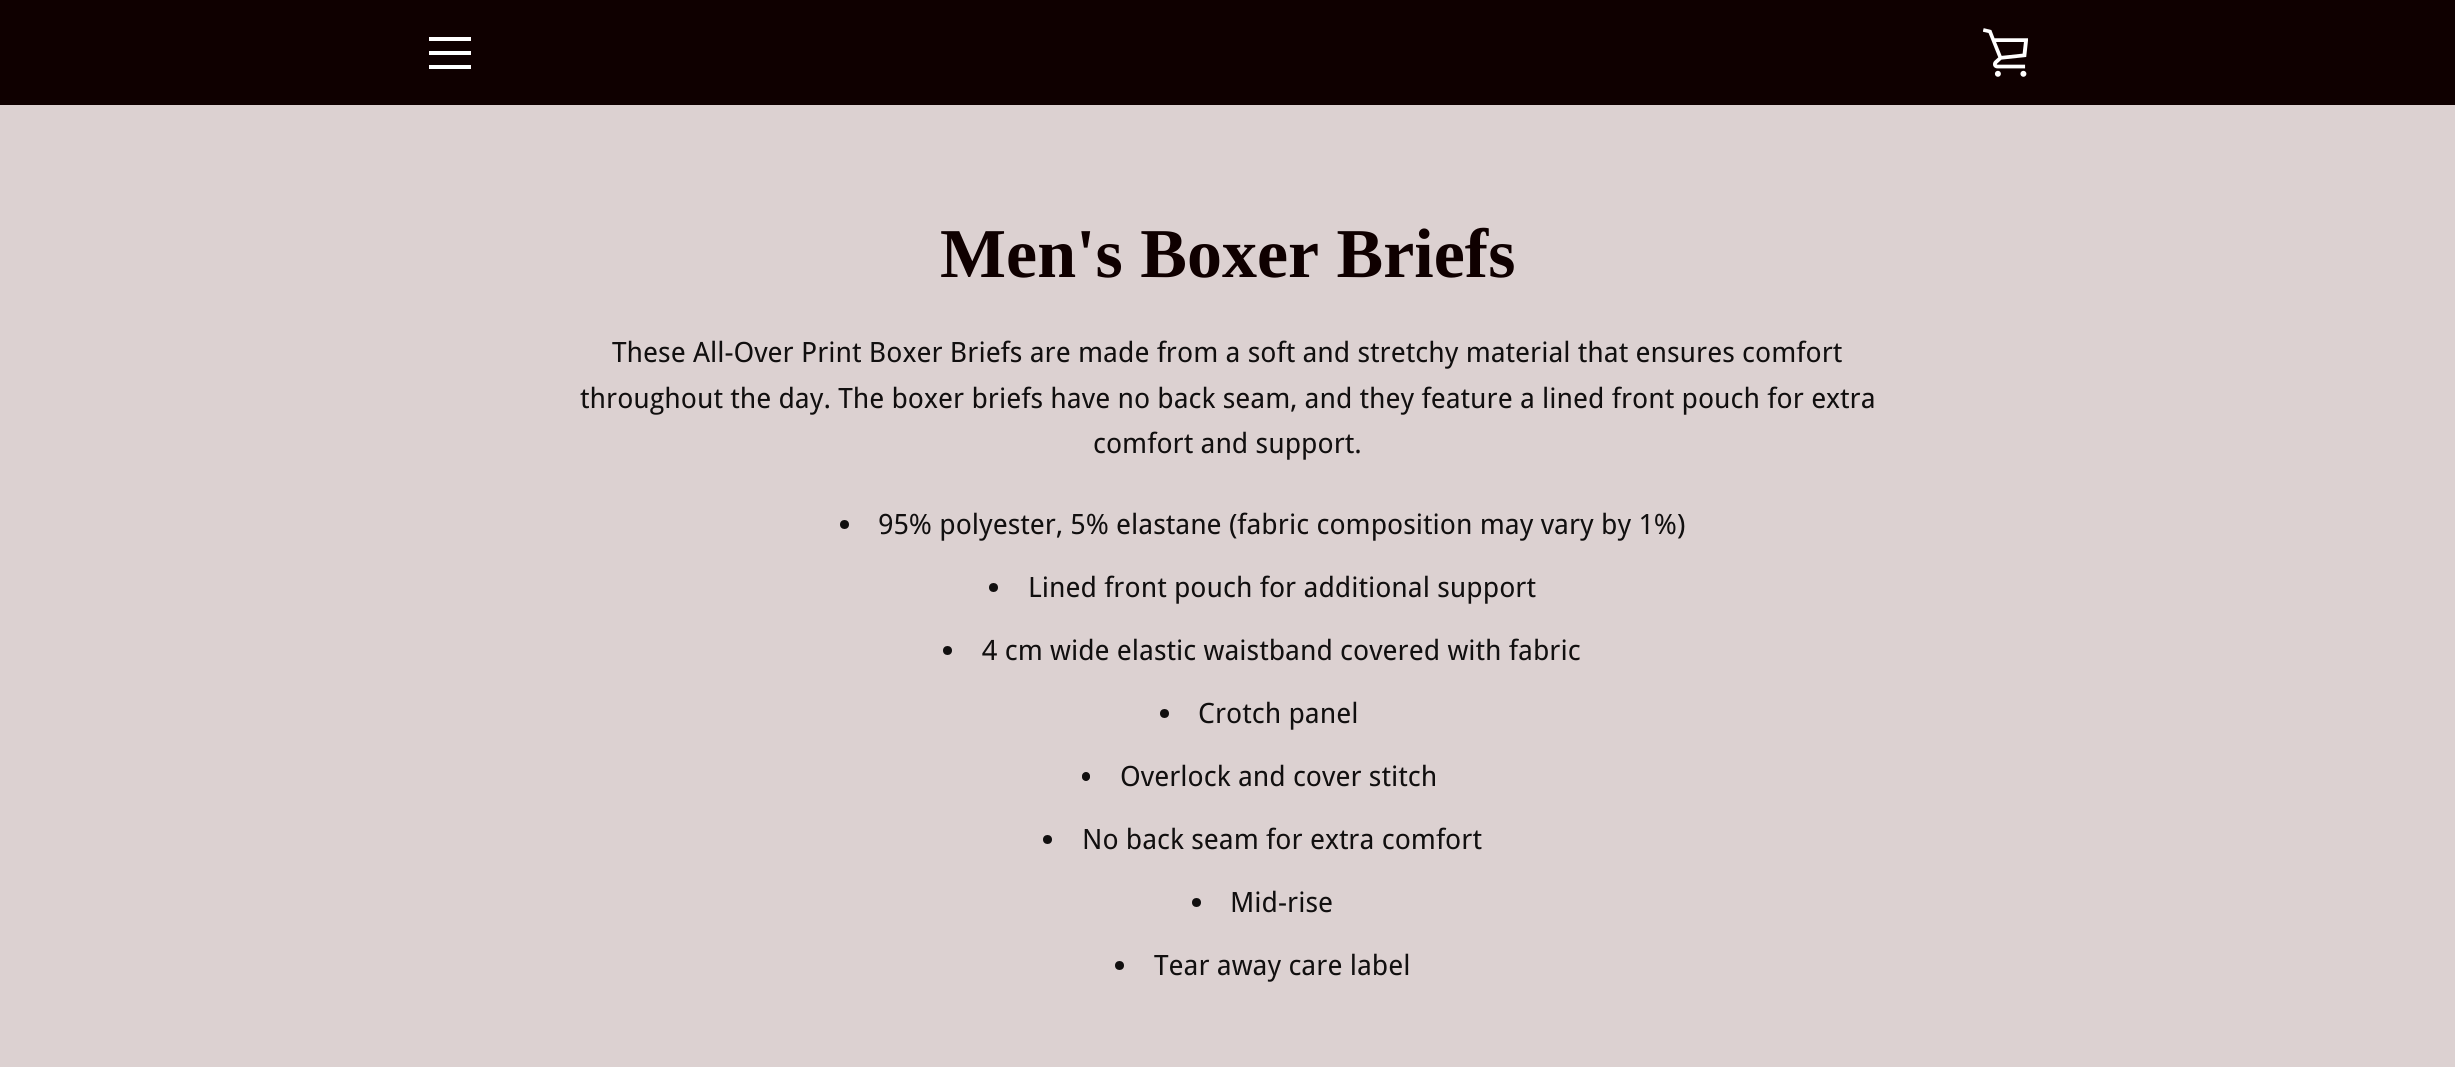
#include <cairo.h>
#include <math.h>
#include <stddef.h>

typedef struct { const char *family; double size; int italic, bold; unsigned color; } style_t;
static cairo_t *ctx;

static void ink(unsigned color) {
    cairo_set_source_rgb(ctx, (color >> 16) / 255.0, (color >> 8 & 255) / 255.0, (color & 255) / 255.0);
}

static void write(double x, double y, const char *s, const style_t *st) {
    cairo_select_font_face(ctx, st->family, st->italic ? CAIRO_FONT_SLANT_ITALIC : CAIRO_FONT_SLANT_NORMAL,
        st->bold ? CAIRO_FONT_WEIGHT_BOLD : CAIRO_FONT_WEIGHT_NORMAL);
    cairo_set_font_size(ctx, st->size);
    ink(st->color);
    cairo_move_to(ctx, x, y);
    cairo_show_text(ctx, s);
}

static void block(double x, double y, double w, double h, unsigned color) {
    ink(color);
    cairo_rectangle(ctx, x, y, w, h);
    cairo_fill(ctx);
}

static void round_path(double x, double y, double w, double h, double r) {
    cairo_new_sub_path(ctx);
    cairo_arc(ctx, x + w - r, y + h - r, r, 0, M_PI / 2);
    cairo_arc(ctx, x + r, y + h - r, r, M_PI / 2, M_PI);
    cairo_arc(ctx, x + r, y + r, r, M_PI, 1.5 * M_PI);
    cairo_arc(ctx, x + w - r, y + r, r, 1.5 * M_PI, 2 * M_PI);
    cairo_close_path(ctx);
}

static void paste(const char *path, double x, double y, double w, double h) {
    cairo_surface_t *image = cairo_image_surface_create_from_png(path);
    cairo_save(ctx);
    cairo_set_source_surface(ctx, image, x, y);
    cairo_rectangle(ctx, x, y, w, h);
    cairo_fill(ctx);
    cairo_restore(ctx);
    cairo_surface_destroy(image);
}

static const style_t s1 = {"Liberation Serif", 70, 0, 1, 0x0f0000};
static const style_t s2 = {"Droid Sans", 28, 0, 0, 0x110f0f};

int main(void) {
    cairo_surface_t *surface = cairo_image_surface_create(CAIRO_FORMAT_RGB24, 2455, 1067);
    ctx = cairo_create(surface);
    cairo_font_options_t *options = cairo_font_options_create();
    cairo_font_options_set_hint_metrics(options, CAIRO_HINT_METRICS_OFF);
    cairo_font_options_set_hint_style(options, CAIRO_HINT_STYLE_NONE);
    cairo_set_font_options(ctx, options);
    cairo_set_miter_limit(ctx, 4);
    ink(0xdcd1d1);
    cairo_paint(ctx);
    block(0, 0, 2455, 105, 0x0f0000);
    block(429, 37, 42, 4, 0xffffff);
    block(429, 51, 42, 4, 0xffffff);
    block(429, 65, 42, 4, 0xffffff);
    paste("pic1.png", 1983, 28, 45, 49);
    write(940, 277, "Men's Boxer Briefs", &s1);
    write(612, 362, "These All-Over Print Boxer Briefs are made from a soft and stretchy material that ensures comfort", &s2);
    write(580, 408, "throughout the day. The boxer briefs have no back seam, and they feature a lined front pouch for extra", &s2);
    write(1093, 453, "comfort and support.", &s2);
    cairo_new_path(ctx);
    cairo_arc(ctx, 844.5, 524.5, 4.5, 0, 2 * M_PI);
    cairo_fill(ctx);
    write(878, 534, "95% polyester, 5% elastane (fabric composition may vary by 1%)", &s2);
    cairo_new_path(ctx);
    cairo_arc(ctx, 993.5, 587.5, 4.5, 0, 2 * M_PI);
    cairo_fill(ctx);
    write(1028, 597, "Lined front pouch for additional support", &s2);
    cairo_new_path(ctx);
    cairo_arc(ctx, 947.5, 650.5, 4.5, 0, 2 * M_PI);
    cairo_fill(ctx);
    write(982, 660, "4 cm wide elastic waistband covered with fabric", &s2);
    cairo_new_path(ctx);
    cairo_arc(ctx, 1164.5, 713.5, 4.5, 0, 2 * M_PI);
    cairo_fill(ctx);
    write(1198, 723, "Crotch panel", &s2);
    round_path(1082, 772, 8, 9, 4);
    cairo_fill(ctx);
    write(1120, 786, "Overlock and cover stitch", &s2);
    cairo_new_path(ctx);
    cairo_arc(ctx, 1047.5, 839.5, 4.5, 0, 2 * M_PI);
    cairo_fill(ctx);
    write(1082, 849, "No back seam for extra comfort", &s2);
    cairo_new_path(ctx);
    cairo_arc(ctx, 1196.5, 902.5, 4.5, 0, 2 * M_PI);
    cairo_fill(ctx);
    write(1230, 912, "Mid-rise", &s2);
    cairo_new_path(ctx);
    cairo_arc(ctx, 1119.5, 965.5, 4.5, 0, 2 * M_PI);
    cairo_fill(ctx);
    write(1154, 975, "Tear away care label", &s2);
    cairo_surface_write_to_png(surface, "screenshot.png");
    cairo_font_options_destroy(options);
    cairo_destroy(ctx);
    cairo_surface_destroy(surface);
    return 0;
}
